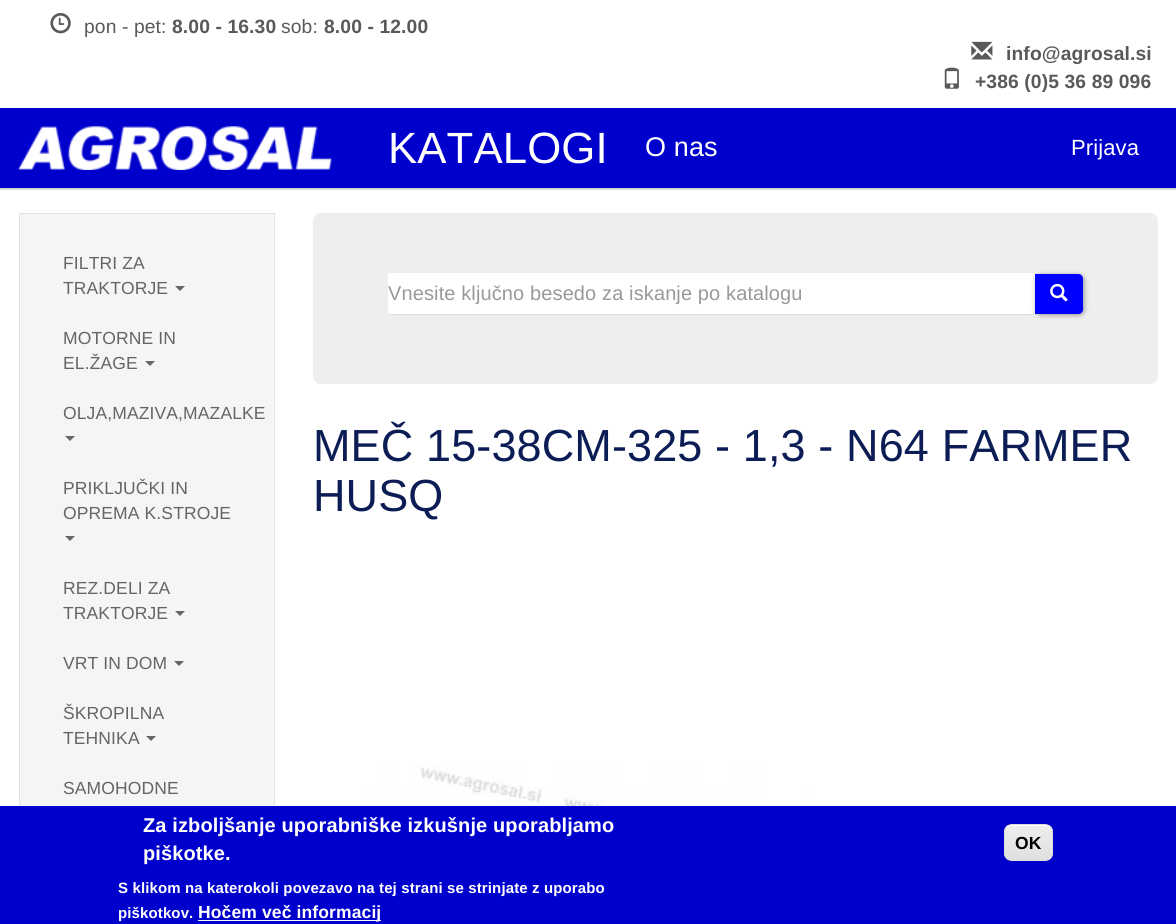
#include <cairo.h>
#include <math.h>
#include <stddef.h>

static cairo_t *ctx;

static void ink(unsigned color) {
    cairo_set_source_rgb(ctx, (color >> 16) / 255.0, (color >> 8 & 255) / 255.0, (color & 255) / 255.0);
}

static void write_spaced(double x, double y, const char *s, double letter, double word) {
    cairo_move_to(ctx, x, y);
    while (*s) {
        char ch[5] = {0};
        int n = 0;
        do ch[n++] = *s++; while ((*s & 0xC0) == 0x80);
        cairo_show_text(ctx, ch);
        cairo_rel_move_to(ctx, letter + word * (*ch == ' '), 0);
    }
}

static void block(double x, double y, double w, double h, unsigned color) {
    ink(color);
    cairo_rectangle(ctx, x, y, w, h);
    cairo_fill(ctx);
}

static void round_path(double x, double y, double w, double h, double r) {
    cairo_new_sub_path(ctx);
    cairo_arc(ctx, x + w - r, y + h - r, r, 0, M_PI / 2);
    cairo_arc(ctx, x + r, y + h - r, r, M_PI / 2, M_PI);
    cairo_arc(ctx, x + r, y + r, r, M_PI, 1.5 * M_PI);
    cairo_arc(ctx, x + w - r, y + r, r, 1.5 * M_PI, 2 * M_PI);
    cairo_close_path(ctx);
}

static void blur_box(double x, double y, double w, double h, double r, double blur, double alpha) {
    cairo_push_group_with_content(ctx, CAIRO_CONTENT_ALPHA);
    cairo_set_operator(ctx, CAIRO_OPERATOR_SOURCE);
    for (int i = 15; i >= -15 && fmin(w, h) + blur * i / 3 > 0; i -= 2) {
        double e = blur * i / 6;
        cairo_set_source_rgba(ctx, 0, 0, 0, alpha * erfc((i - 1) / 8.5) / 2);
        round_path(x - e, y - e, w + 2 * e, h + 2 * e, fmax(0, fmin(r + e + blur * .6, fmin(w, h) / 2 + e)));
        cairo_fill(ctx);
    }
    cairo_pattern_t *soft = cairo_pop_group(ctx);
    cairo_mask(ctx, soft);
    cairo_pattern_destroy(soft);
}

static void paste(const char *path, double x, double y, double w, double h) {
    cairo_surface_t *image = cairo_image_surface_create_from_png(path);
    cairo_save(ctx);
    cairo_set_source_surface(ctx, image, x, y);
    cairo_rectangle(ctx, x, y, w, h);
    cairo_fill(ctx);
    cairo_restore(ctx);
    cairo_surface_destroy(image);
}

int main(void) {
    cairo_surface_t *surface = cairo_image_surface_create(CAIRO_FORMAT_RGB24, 1176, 924);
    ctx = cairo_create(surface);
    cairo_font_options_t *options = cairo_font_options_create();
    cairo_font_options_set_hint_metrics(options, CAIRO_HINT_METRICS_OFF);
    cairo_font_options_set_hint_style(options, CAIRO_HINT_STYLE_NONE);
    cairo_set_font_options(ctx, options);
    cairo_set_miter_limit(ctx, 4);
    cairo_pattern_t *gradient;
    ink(0xffffff);
    cairo_paint(ctx);
    cairo_save(ctx);
    cairo_set_fill_rule(ctx, CAIRO_FILL_RULE_EVEN_ODD);
    cairo_new_path(ctx);
    cairo_move_to(ctx, 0, 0);
    cairo_line_to(ctx, 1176, 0);
    cairo_line_to(ctx, 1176, 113);
    cairo_line_to(ctx, 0, 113);
    cairo_close_path(ctx);
    cairo_move_to(ctx, 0, 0);
    cairo_line_to(ctx, 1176, 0);
    cairo_line_to(ctx, 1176, 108);
    cairo_line_to(ctx, 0, 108);
    cairo_close_path(ctx);
    cairo_clip(ctx);
    ink(0x000000);
    blur_box(0, 1, 1176, 108, 0, 1, 0.3);
    cairo_restore(ctx);
    block(19, 107, 1139, 1, 0xffffff);
    paste("pic1.png", 50, 13, 21, 21);
    cairo_select_font_face(ctx, "Liberation Sans", CAIRO_FONT_SLANT_NORMAL, CAIRO_FONT_WEIGHT_NORMAL);
    cairo_set_font_size(ctx, 19.25);
    ink(0x595959);
    write_spaced(84, 33, "pon - pet:", 0.12, 0);
    cairo_select_font_face(ctx, "Liberation Sans", CAIRO_FONT_SLANT_NORMAL, CAIRO_FONT_WEIGHT_BOLD);
    write_spaced(172, 33, "8.00 - 16.30", 0.12, 0);
    cairo_select_font_face(ctx, "Liberation Sans", CAIRO_FONT_SLANT_NORMAL, CAIRO_FONT_WEIGHT_NORMAL);
    write_spaced(281, 33, "sob:", 0.12, 0);
    cairo_select_font_face(ctx, "Liberation Sans", CAIRO_FONT_SLANT_NORMAL, CAIRO_FONT_WEIGHT_BOLD);
    write_spaced(324, 33, "8.00 - 12.00", 0.12, 0);
    paste("pic2.png", 971, 41, 22, 19);
    write_spaced(1006, 60, "info@agrosal.si", 0.12, 0);
    paste("pic3.png", 944, 67, 15, 22);
    write_spaced(975, 88, "+386 (0)5 36 89 096", 0.12, 0);
    ink(0x000000);
    blur_box(0, 109, 1176, 80, 0, 1, 0.3);
    block(0, 108, 1176, 80, 0x0000cc);
    paste("pic4.png", 18, 126, 314, 44);
    cairo_select_font_face(ctx, "Liberation Sans", CAIRO_FONT_SLANT_NORMAL, CAIRO_FONT_WEIGHT_NORMAL);
    cairo_set_font_size(ctx, 43.75);
    ink(0xffffff);
    write_spaced(388, 163, "KATALOGI", 0.12, 0);
    cairo_set_font_size(ctx, 27);
    write_spaced(645, 156, "O nas", 0.12, 0);
    cairo_set_font_size(ctx, 22);
    write_spaced(1071, 155, "Prijava", 0.12, 0);
    block(20, 214, 254, 592, 0xf5f5f5);
    cairo_rectangle(ctx, 19.5, 213.5, 255, 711);
    ink(0xe3e3e3);
    cairo_set_line_width(ctx, 1);
    cairo_stroke(ctx);
    cairo_set_font_size(ctx, 17.5);
    ink(0x656565);
    write_spaced(63, 269, "FILTRI ZA", 0.12, 0);
    write_spaced(63, 294, "TRAKTORJE", 0.12, 0);
    cairo_new_path(ctx);
    cairo_move_to(ctx, 175, 286);
    cairo_line_to(ctx, 185, 286);
    cairo_line_to(ctx, 180, 291);
    cairo_close_path(ctx);
    cairo_fill(ctx);
    write_spaced(63, 344, "MOTORNE IN", 0.12, 0);
    write_spaced(63, 369, "EL.ŽAGE", 0.12, 0);
    cairo_new_path(ctx);
    cairo_move_to(ctx, 145, 361);
    cairo_line_to(ctx, 155, 361);
    cairo_line_to(ctx, 150, 366);
    cairo_close_path(ctx);
    cairo_fill(ctx);
    write_spaced(63, 419, "OLJA,MAZIVA,MAZALKE", 0.12, 0);
    cairo_new_path(ctx);
    cairo_move_to(ctx, 65, 436);
    cairo_line_to(ctx, 75, 436);
    cairo_line_to(ctx, 70, 441);
    cairo_close_path(ctx);
    cairo_fill(ctx);
    write_spaced(63, 494, "PRIKLJUČKI IN", 0.12, 0);
    write_spaced(63, 519, "OPREMA K.STROJE", 0.12, 0);
    cairo_new_path(ctx);
    cairo_move_to(ctx, 65, 536);
    cairo_line_to(ctx, 75, 536);
    cairo_line_to(ctx, 70, 541);
    cairo_close_path(ctx);
    cairo_fill(ctx);
    write_spaced(63, 594, "REZ.DELI ZA", 0.12, 0);
    write_spaced(63, 619, "TRAKTORJE", 0.12, 0);
    cairo_new_path(ctx);
    cairo_move_to(ctx, 175, 611);
    cairo_line_to(ctx, 185, 611);
    cairo_line_to(ctx, 180, 616);
    cairo_close_path(ctx);
    cairo_fill(ctx);
    write_spaced(63, 669, "VRT IN DOM", 0.12, 0);
    cairo_new_path(ctx);
    cairo_move_to(ctx, 174, 661);
    cairo_line_to(ctx, 184, 661);
    cairo_line_to(ctx, 179, 666);
    cairo_close_path(ctx);
    cairo_fill(ctx);
    write_spaced(63, 719, "ŠKROPILNA", 0.12, 0);
    write_spaced(63, 744, "TEHNIKA", 0.12, 0);
    cairo_new_path(ctx);
    cairo_move_to(ctx, 146, 736);
    cairo_line_to(ctx, 156, 736);
    cairo_line_to(ctx, 151, 741);
    cairo_close_path(ctx);
    cairo_fill(ctx);
    write_spaced(63, 794, "SAMOHODNE", 0.12, 0);
    ink(0xeeeeee);
    round_path(313, 213, 845, 171, 8);
    cairo_fill(ctx);
    block(388, 273, 648, 41, 0xffffff);
    block(388, 314, 648, 1, 0xdddddd);
    cairo_set_font_size(ctx, 20);
    ink(0x999999);
    write_spaced(388, 300, "Vnesite ključno besedo za iskanje po katalogu", 0.12, 0);
    ink(0x000000);
    blur_box(1036, 275, 48, 40, 5, 2.5, 0.4);
    ink(0x0000ff);
    cairo_new_path(ctx);
    cairo_move_to(ctx, 1035, 274);
    cairo_line_to(ctx, 1078, 274);
    cairo_curve_to(ctx, 1081, 274, 1083, 276, 1083, 279);
    cairo_line_to(ctx, 1083, 309);
    cairo_curve_to(ctx, 1083, 312, 1081, 314, 1078, 314);
    cairo_line_to(ctx, 1035, 314);
    cairo_close_path(ctx);
    cairo_fill(ctx);
    paste("pic5.png", 1050, 283, 18, 19);
    cairo_set_font_size(ctx, 45);
    ink(0x0c1c55);
    write_spaced(313, 461, "MEČ 15-38CM-325 - 1,3 - N64 FARMER", 0.12, 0);
    write_spaced(313, 511, "HUSQ", 0.12, 0);
    paste("pic6.png", 363, 766, 499, 40);
    block(0, 806, 1176, 118, 0x0000cc);
    cairo_select_font_face(ctx, "Liberation Sans", CAIRO_FONT_SLANT_NORMAL, CAIRO_FONT_WEIGHT_BOLD);
    cairo_set_font_size(ctx, 20);
    ink(0xffffff);
    write_spaced(143, 832, "Za izboljšanje uporabniške izkušnje uporabljamo", 0.12, 0);
    write_spaced(143, 860, "piškotke.", 0.12, 0);
    cairo_set_font_size(ctx, 15);
    write_spaced(118, 893, "S klikom na katerokoli povezavo na tej strani se strinjate z uporabo", 0.12, 0);
    write_spaced(118, 918, "piškotkov.", 0.12, 0);
    block(198, 920, 183, 1, 0xffffff);
    cairo_set_font_size(ctx, 17.5);
    write_spaced(198, 918, "Hočem več informacij", 0.12, 0);
    cairo_save(ctx);
    round_path(1004, 824, 49, 37, 8);
    cairo_clip(ctx);
    gradient = cairo_pattern_create_linear(1028, 825, 1028, 860);
    cairo_pattern_add_color_stop_rgba(gradient, 0.05, 0.929, 0.929, 0.929, 1);
    cairo_pattern_add_color_stop_rgba(gradient, 1, 0.875, 0.875, 0.875, 1);
    cairo_set_source(ctx, gradient);
    cairo_pattern_destroy(gradient);
    cairo_rectangle(ctx, 1004, 825, 49, 35);
    cairo_fill(ctx);
    cairo_restore(ctx);
    cairo_new_path(ctx);
    cairo_move_to(ctx, 1011, 826);
    cairo_line_to(ctx, 1045, 826);
    cairo_curve_to(ctx, 1048, 826, 1051, 829, 1051, 832);
    cairo_curve_to(ctx, 1051, 824, 1045, 825, 1039, 825);
    cairo_line_to(ctx, 1017, 825);
    cairo_curve_to(ctx, 1011, 825, 1005, 824, 1005, 832);
    cairo_curve_to(ctx, 1005, 829, 1008, 826, 1011, 826);
    cairo_close_path(ctx);
    cairo_fill(ctx);
    round_path(1004.5, 824.5, 48, 36, 7.5);
    ink(0xdcdcdc);
    cairo_stroke(ctx);
    ink(0x000000);
    write_spaced(1015, 849, "OK", 0.12, 0);
    cairo_surface_write_to_png(surface, "screenshot.png");
    cairo_font_options_destroy(options);
    cairo_destroy(ctx);
    cairo_surface_destroy(surface);
    return 0;
}
